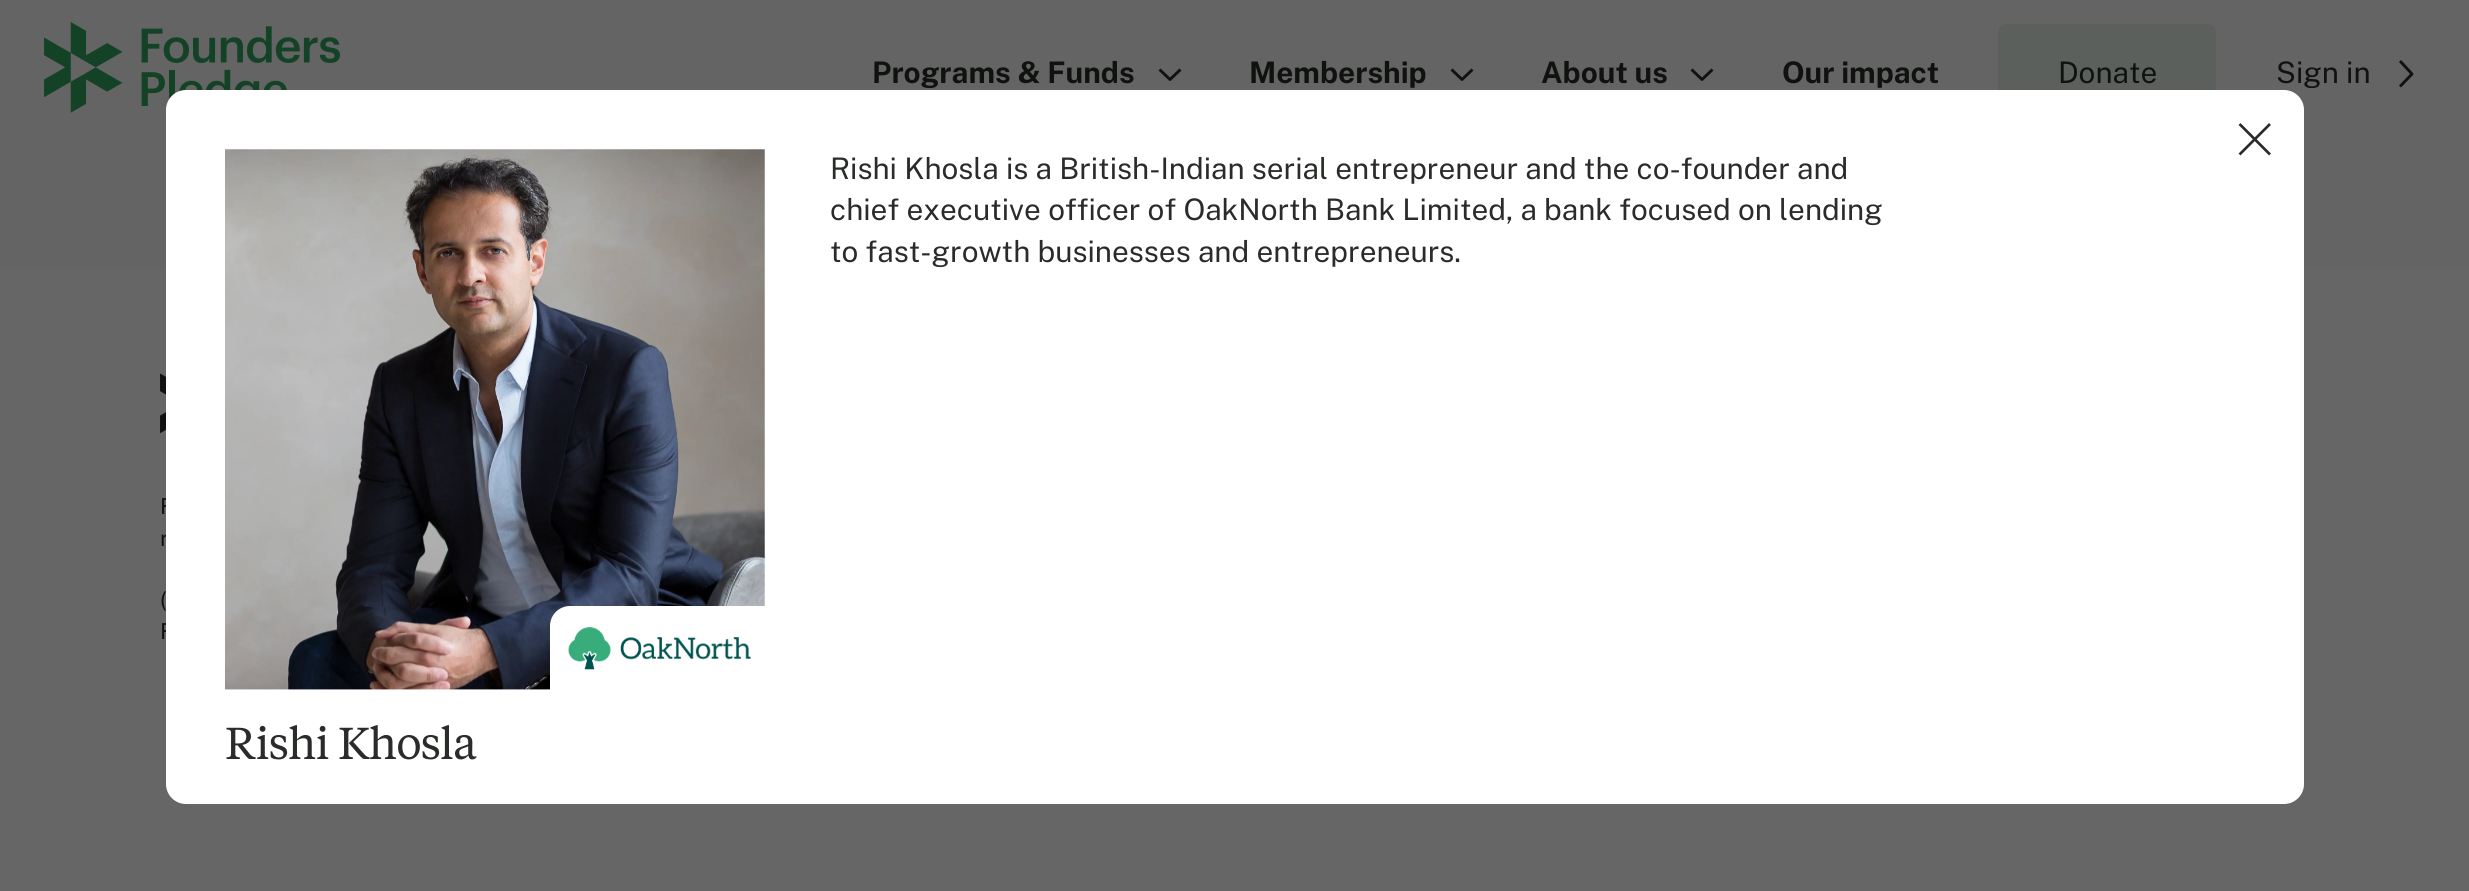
#include <cairo.h>
#include <math.h>
#include <stddef.h>

typedef struct { const char *family; double size; int italic, bold; unsigned color; } style_t;
static cairo_t *ctx;

static void ink(unsigned color) {
    cairo_set_source_rgb(ctx, (color >> 16) / 255.0, (color >> 8 & 255) / 255.0, (color & 255) / 255.0);
}

static void write(double x, double y, const char *s, const style_t *st) {
    cairo_select_font_face(ctx, st->family, st->italic ? CAIRO_FONT_SLANT_ITALIC : CAIRO_FONT_SLANT_NORMAL,
        st->bold ? CAIRO_FONT_WEIGHT_BOLD : CAIRO_FONT_WEIGHT_NORMAL);
    cairo_set_font_size(ctx, st->size);
    ink(st->color);
    cairo_move_to(ctx, x, y);
    cairo_show_text(ctx, s);
}

static void write_spaced(double x, double y, const char *s, double letter, double word) {
    cairo_move_to(ctx, x, y);
    while (*s) {
        char ch[5] = {0};
        int n = 0;
        do ch[n++] = *s++; while ((*s & 0xC0) == 0x80);
        cairo_show_text(ctx, ch);
        cairo_rel_move_to(ctx, letter + word * (*ch == ' '), 0);
    }
}

static void block(double x, double y, double w, double h, unsigned color) {
    ink(color);
    cairo_rectangle(ctx, x, y, w, h);
    cairo_fill(ctx);
}

static void round_path(double x, double y, double w, double h, double r) {
    cairo_new_sub_path(ctx);
    cairo_arc(ctx, x + w - r, y + h - r, r, 0, M_PI / 2);
    cairo_arc(ctx, x + r, y + h - r, r, M_PI / 2, M_PI);
    cairo_arc(ctx, x + r, y + r, r, M_PI, 1.5 * M_PI);
    cairo_arc(ctx, x + w - r, y + r, r, 1.5 * M_PI, 2 * M_PI);
    cairo_close_path(ctx);
}

static void paste(const char *path, double x, double y, double w, double h) {
    cairo_surface_t *image = cairo_image_surface_create_from_png(path);
    cairo_save(ctx);
    cairo_set_source_surface(ctx, image, x, y);
    cairo_rectangle(ctx, x, y, w, h);
    cairo_fill(ctx);
    cairo_restore(ctx);
    cairo_surface_destroy(image);
}

static const style_t s1 = {"Public Sans", 29.7, 0, 1, 0x101210};
static const style_t s2 = {"Public Sans", 29.7, 0, 0, 0x101210};
static const style_t s3 = {"Public Sans", 22, 0, 0, 0x101210};
static const style_t s4 = {"Public Sans", 29.7, 0, 0, 0x292c29};

int main(void) {
    cairo_surface_t *surface = cairo_image_surface_create(CAIRO_FORMAT_RGB24, 2469, 891);
    ctx = cairo_create(surface);
    cairo_font_options_t *options = cairo_font_options_create();
    cairo_font_options_set_hint_metrics(options, CAIRO_HINT_METRICS_OFF);
    cairo_font_options_set_hint_style(options, CAIRO_HINT_STYLE_NONE);
    cairo_set_font_options(ctx, options);
    cairo_set_miter_limit(ctx, 4);
    ink(0x636463);
    cairo_paint(ctx);
    paste("pic1.png", 44, 22, 296, 91);
    write(872, 83, "Programs & Funds", &s1);
    cairo_new_path(ctx);
    cairo_move_to(ctx, 1180.5, 69.5);
    cairo_line_to(ctx, 1170, 79.5);
    cairo_line_to(ctx, 1159.5, 69.5);
    cairo_set_line_width(ctx, 2.9);
    cairo_set_line_join(ctx, CAIRO_LINE_JOIN_ROUND);
    cairo_stroke(ctx);
    write(1249, 83, "Membership", &s1);
    cairo_new_path(ctx);
    cairo_move_to(ctx, 1472.5, 69.5);
    cairo_line_to(ctx, 1462, 79.5);
    cairo_line_to(ctx, 1451.5, 69.5);
    cairo_stroke(ctx);
    write(1541, 83, "About us", &s1);
    cairo_new_path(ctx);
    cairo_move_to(ctx, 1712.5, 69.5);
    cairo_line_to(ctx, 1702, 79.5);
    cairo_line_to(ctx, 1691.5, 69.5);
    cairo_stroke(ctx);
    write(1782, 83, "Our impact", &s1);
    ink(0x5b605d);
    round_path(1998, 24, 218, 100, 8);
    cairo_fill(ctx);
    write(2058, 83, "Donate", &s2);
    write(2276, 83, "Sign in", &s2);
    cairo_new_path(ctx);
    cairo_move_to(ctx, 2400, 86.5);
    cairo_line_to(ctx, 2412, 74);
    cairo_line_to(ctx, 2400, 61);
    cairo_stroke(ctx);
    block(0, 268, 2469, 623, 0x666666);
    paste("pic2.png", 160, 373, 6, 61);
    write(160, 514, "F", &s3);
    write(160, 546, "r", &s3);
    write(160, 608, "(", &s3);
    write(160, 639, "F", &s3);
    ink(0xffffff);
    round_path(166, 90, 2138, 714, 20);
    cairo_fill(ctx);
    cairo_new_path(ctx);
    cairo_move_to(ctx, 2239.5, 124);
    cairo_line_to(ctx, 2270, 154.5);
    cairo_move_to(ctx, 2270, 124);
    cairo_line_to(ctx, 2239.5, 154.5);
    ink(0x292c29);
    cairo_set_line_width(ctx, 2.7);
    cairo_stroke(ctx);
    write(830, 179, "Rishi Khosla is a British-Indian serial entrepreneur and the co-founder and", &s4);
    write(830, 220, "chief executive officer of OakNorth Bank Limited, a bank focused on lending", &s4);
    write(830, 262, "to fast-growth businesses and entrepreneurs.", &s4);
    paste("pic3.png", 225, 149, 540, 541);
    ink(0xffffff);
    cairo_new_path(ctx);
    cairo_move_to(ctx, 570, 606);
    cairo_line_to(ctx, 766, 606);
    cairo_line_to(ctx, 766, 692);
    cairo_line_to(ctx, 550, 692);
    cairo_line_to(ctx, 550, 626);
    cairo_curve_to(ctx, 550, 615, 559, 606, 570, 606);
    cairo_close_path(ctx);
    cairo_fill(ctx);
    paste("pic4.png", 568, 627, 183, 43);
    cairo_select_font_face(ctx, "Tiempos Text", CAIRO_FONT_SLANT_NORMAL, CAIRO_FONT_WEIGHT_NORMAL);
    cairo_set_font_size(ctx, 44.5);
    ink(0x292c29);
    write_spaced(225, 759, "Rishi Khosla", -0.9, 0);
    cairo_surface_write_to_png(surface, "screenshot.png");
    cairo_font_options_destroy(options);
    cairo_destroy(ctx);
    cairo_surface_destroy(surface);
    return 0;
}
